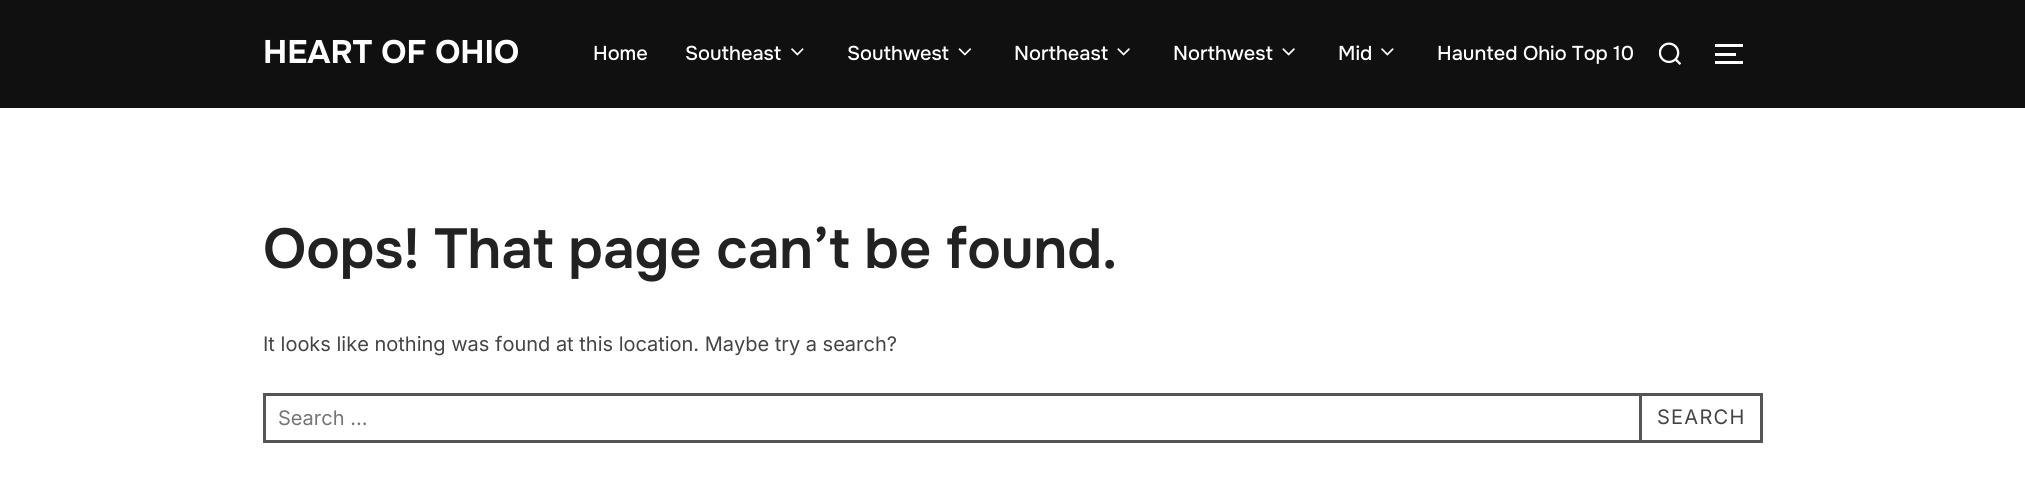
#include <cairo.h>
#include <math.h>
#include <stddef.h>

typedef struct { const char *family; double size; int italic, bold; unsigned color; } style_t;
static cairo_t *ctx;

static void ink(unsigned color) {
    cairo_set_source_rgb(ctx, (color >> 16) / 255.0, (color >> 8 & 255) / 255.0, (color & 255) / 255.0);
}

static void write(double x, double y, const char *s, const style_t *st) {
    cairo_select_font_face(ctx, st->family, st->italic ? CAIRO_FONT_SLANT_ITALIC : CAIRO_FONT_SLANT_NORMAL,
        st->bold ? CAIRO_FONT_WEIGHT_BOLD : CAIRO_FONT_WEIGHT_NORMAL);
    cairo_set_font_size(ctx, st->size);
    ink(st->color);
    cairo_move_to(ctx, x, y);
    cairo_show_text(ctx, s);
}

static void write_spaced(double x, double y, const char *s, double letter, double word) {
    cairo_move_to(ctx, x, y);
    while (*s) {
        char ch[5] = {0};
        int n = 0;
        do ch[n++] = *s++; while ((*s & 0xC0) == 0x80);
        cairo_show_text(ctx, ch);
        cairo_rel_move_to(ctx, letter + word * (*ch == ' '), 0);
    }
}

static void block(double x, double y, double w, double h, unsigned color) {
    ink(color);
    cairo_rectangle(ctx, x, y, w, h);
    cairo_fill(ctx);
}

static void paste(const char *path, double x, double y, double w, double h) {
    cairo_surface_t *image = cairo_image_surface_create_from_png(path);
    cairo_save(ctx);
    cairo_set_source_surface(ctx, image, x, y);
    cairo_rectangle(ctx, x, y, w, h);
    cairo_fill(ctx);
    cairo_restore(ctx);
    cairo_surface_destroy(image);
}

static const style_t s1 = {"Onest", 32.5, 0, 1, 0xffffff};
static const style_t s2 = {"Onest Medium", 20, 0, 0, 0xffffff};
static const style_t s3 = {"Inter", 20, 0, 0, 0x444444};
static const style_t s4 = {"Inter", 20, 0, 0, 0x757575};

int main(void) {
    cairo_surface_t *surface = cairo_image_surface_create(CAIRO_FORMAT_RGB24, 2025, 477);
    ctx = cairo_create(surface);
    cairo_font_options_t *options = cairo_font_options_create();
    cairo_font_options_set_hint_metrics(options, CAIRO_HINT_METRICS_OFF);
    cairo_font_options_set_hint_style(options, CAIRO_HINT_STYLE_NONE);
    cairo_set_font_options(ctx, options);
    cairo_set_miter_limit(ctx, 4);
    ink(0xffffff);
    cairo_paint(ctx);
    block(0, 0, 2025, 108, 0x101010);
    write(263, 63, "HEART OF OHIO", &s1);
    write(593, 60, "Home", &s2);
    write(685, 60, "Southeast", &s2);
    paste("pic1.png", 791, 48, 13, 8);
    write(847, 60, "Southwest", &s2);
    paste("pic2.png", 958, 48, 14, 8);
    write(1014, 60, "Northeast", &s2);
    paste("pic3.png", 1117, 48, 13, 8);
    write(1173, 60, "Northwest", &s2);
    paste("pic3.png", 1282, 48, 13, 8);
    write(1338, 60, "Mid", &s2);
    paste("pic1.png", 1381, 48, 13, 8);
    write(1437, 60, "Haunted Ohio Top 10", &s2);
    paste("pic4.png", 1659, 42, 22, 23);
    block(1715, 44, 28, 3, 0xffffff);
    block(1715, 53, 21, 3, 0xffffff);
    block(1715, 61, 28, 3, 0xffffff);
    cairo_select_font_face(ctx, "Onest SemiBold", CAIRO_FONT_SLANT_NORMAL, CAIRO_FONT_WEIGHT_NORMAL);
    cairo_set_font_size(ctx, 56.25);
    ink(0x222222);
    write_spaced(263, 268, "Oops! That page can’t be found.", 0, -1);
    write(263, 351, "It looks like nothing was found at this location. Maybe try a search?", &s3);
    cairo_rectangle(ctx, 264.5, 394.5, 1497, 47);
    ink(0x565555);
    cairo_set_line_width(ctx, 3);
    cairo_stroke(ctx);
    write(278, 425, "Search …", &s4);
    cairo_rectangle(ctx, 1640.5, 394.5, 121, 47);
    ink(0x565555);
    cairo_stroke(ctx);
    ink(0x444444);
    write_spaced(1657, 424, "SEARCH", 1.25, 0);
    cairo_surface_write_to_png(surface, "screenshot.png");
    cairo_font_options_destroy(options);
    cairo_destroy(ctx);
    cairo_surface_destroy(surface);
    return 0;
}
